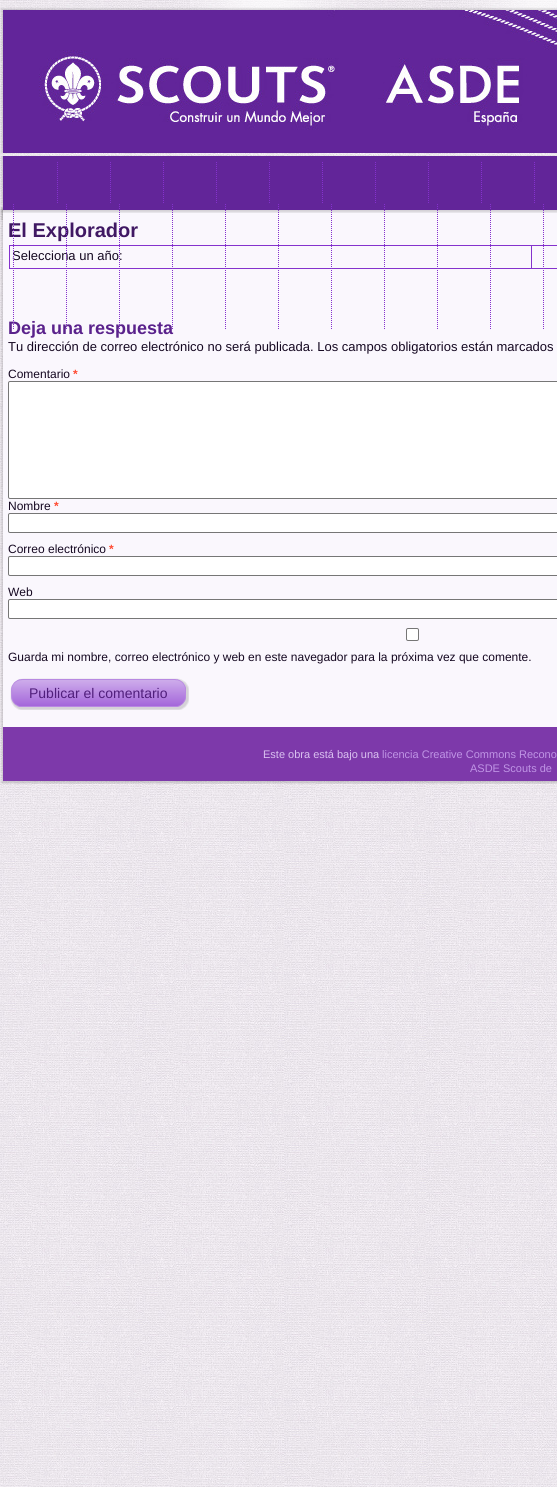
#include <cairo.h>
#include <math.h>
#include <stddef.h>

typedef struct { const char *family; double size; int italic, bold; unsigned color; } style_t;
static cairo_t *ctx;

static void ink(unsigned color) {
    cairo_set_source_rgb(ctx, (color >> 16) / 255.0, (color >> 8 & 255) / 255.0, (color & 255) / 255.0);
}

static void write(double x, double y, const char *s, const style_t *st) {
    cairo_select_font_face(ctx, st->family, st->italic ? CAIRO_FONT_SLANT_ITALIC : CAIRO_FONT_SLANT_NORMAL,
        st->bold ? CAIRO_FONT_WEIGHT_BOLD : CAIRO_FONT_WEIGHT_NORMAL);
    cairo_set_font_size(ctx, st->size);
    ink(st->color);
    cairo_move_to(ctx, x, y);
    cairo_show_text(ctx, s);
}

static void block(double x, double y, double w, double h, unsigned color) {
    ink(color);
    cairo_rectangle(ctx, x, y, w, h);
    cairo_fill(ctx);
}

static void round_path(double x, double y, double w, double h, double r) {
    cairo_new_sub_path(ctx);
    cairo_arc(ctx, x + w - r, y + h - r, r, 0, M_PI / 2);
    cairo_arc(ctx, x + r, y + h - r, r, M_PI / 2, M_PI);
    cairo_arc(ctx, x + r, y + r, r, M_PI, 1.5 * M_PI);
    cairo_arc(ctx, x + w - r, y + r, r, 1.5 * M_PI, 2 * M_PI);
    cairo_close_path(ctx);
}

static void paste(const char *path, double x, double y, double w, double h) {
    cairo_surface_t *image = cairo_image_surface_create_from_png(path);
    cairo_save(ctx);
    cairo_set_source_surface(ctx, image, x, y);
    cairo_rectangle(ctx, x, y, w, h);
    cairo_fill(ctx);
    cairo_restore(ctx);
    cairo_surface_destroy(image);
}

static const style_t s1 = {"Liberation Sans", 20, 0, 1, 0x401863};
static const style_t s2 = {"Liberation Sans", 13, 0, 0, 0x150821};
static const style_t s3 = {"Liberation Sans", 18, 0, 1, 0x5a228c};
static const style_t s4 = {"Liberation Sans", 12, 0, 0, 0x150821};
static const style_t s5 = {"Liberation Sans", 12, 0, 1, 0xff4b33};
static const style_t s6 = {"Liberation Sans", 14, 0, 0, 0x501e7b};
static const style_t s7 = {"Liberation Sans", 11, 0, 0, 0xdac1f0};
static const style_t s8 = {"Liberation Sans", 11, 0, 0, 0xbf94e5};

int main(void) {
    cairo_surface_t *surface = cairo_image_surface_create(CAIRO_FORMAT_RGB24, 557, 1487);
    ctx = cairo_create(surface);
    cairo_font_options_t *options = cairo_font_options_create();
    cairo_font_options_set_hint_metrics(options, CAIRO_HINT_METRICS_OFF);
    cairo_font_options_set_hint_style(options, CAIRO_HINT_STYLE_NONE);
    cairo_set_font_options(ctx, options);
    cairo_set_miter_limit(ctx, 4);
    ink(0xffffff);
    cairo_paint(ctx);
    paste("pic1.png", 0, 0, 557, 1487);
    paste("pic2.png", 190, 0, 367, 10);
    paste("pic3.png", 0, 7, 557, 146);
    paste("pic4.png", 9, 10, 548, 138);
    paste("pic17.png", 0, 207, 557, 577);
    paste("pic18.png", 0, 207, 557, 13);
    paste("pic5.png", 0, 156, 557, 57);
    paste("pic6.png", 57, 162, 1, 41);
    paste("pic6.png", 110, 162, 1, 41);
    paste("pic6.png", 163, 162, 1, 41);
    paste("pic6.png", 216, 162, 1, 41);
    paste("pic6.png", 269, 162, 1, 41);
    paste("pic6.png", 322, 162, 1, 41);
    paste("pic6.png", 375, 162, 1, 41);
    paste("pic6.png", 428, 162, 1, 41);
    paste("pic6.png", 481, 162, 1, 41);
    paste("pic6.png", 534, 162, 1, 41);
    paste("pic19.png", 0, 220, 557, 551);
    write(8, 237, "El Explorador", &s1);
    paste("pic7.png", 13, 204, 1, 41);
    paste("pic8.png", 66, 204, 1, 41);
    paste("pic9.png", 119, 204, 1, 41);
    paste("pic10.png", 172, 204, 1, 41);
    paste("pic10.png", 225, 204, 1, 41);
    paste("pic10.png", 278, 204, 1, 41);
    paste("pic10.png", 331, 204, 1, 41);
    paste("pic10.png", 384, 204, 1, 41);
    paste("pic10.png", 437, 204, 1, 41);
    paste("pic10.png", 490, 204, 1, 41);
    paste("pic10.png", 543, 204, 1, 41);
    block(531, 268, 26, 1, 0x8532cd);
    block(531, 245, 26, 1, 0x8532cd);
    block(531, 245, 1, 24, 0x8532cd);
    block(9, 268, 523, 1, 0x8532cd);
    write(12, 260, "Selecciona un año:", &s2);
    paste("pic11.png", 13, 246, 1, 41);
    paste("pic12.png", 66, 246, 1, 41);
    paste("pic13.png", 119, 246, 1, 41);
    paste("pic13.png", 172, 246, 1, 41);
    paste("pic13.png", 225, 246, 1, 41);
    paste("pic13.png", 278, 246, 1, 41);
    paste("pic13.png", 331, 246, 1, 41);
    paste("pic13.png", 384, 246, 1, 41);
    paste("pic13.png", 437, 246, 1, 41);
    paste("pic13.png", 490, 246, 1, 41);
    paste("pic13.png", 543, 246, 1, 41);
    write(8, 334, "Deja una respuesta", &s3);
    paste("pic14.png", 13, 288, 1, 41);
    paste("pic15.png", 66, 288, 1, 41);
    paste("pic16.png", 119, 288, 1, 41);
    paste("pic13.png", 172, 288, 1, 41);
    paste("pic13.png", 225, 288, 1, 41);
    paste("pic13.png", 278, 288, 1, 41);
    paste("pic13.png", 331, 288, 1, 41);
    paste("pic13.png", 384, 288, 1, 41);
    paste("pic13.png", 437, 288, 1, 41);
    paste("pic13.png", 490, 288, 1, 41);
    paste("pic13.png", 543, 288, 1, 41);
    block(9, 245, 523, 1, 0x8532cd);
    block(9, 245, 1, 24, 0x8532cd);
    write(8, 351, "Tu dirección de correo electrónico no será publicada. Los campos obligatorios están marcados", &s2);
    write(8, 378, "Comentario", &s4);
    write(73, 378, "*", &s5);
    ink(0xffffff);
    round_path(8.5, 381.5, 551, 117, 1.5);
    cairo_fill_preserve(ctx);
    ink(0x767676);
    cairo_set_line_width(ctx, 1);
    cairo_stroke(ctx);
    write(8, 510, "Nombre", &s4);
    write(54, 510, "*", &s5);
    ink(0xffffff);
    round_path(8.5, 513.5, 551, 19, 1.5);
    cairo_fill_preserve(ctx);
    ink(0x767676);
    cairo_stroke(ctx);
    write(8, 553, "Correo electrónico", &s4);
    write(109, 553, "*", &s5);
    ink(0xffffff);
    round_path(8.5, 556.5, 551, 19, 1.5);
    cairo_fill_preserve(ctx);
    ink(0x767676);
    cairo_stroke(ctx);
    write(8, 596, "Web", &s4);
    ink(0xffffff);
    round_path(8.5, 599.5, 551, 19, 1.5);
    cairo_fill_preserve(ctx);
    ink(0x767676);
    cairo_stroke(ctx);
    ink(0xffffff);
    round_path(406.5, 628.5, 12, 12, 1.5);
    cairo_fill_preserve(ctx);
    ink(0x767676);
    cairo_stroke(ctx);
    write(8, 661, "Guarda mi nombre, correo electrónico y web en este navegador para la próxima vez que comente.", &s4);
    paste("pic20.png", 10, 678, 162, 32);
    paste("pic21.png", 172, 678, 17, 32);
    write(29, 698, "Publicar el comentario", &s6);
    block(3, 727, 554, 54, 0x7d39aa);
    write(263, 758, "Este obra está bajo una", &s7);
    write(382, 758, "licencia Creative Commons Recono", &s8);
    write(470, 772, "ASDE Scouts de", &s8);
    cairo_surface_write_to_png(surface, "screenshot.png");
    cairo_font_options_destroy(options);
    cairo_destroy(ctx);
    cairo_surface_destroy(surface);
    return 0;
}
